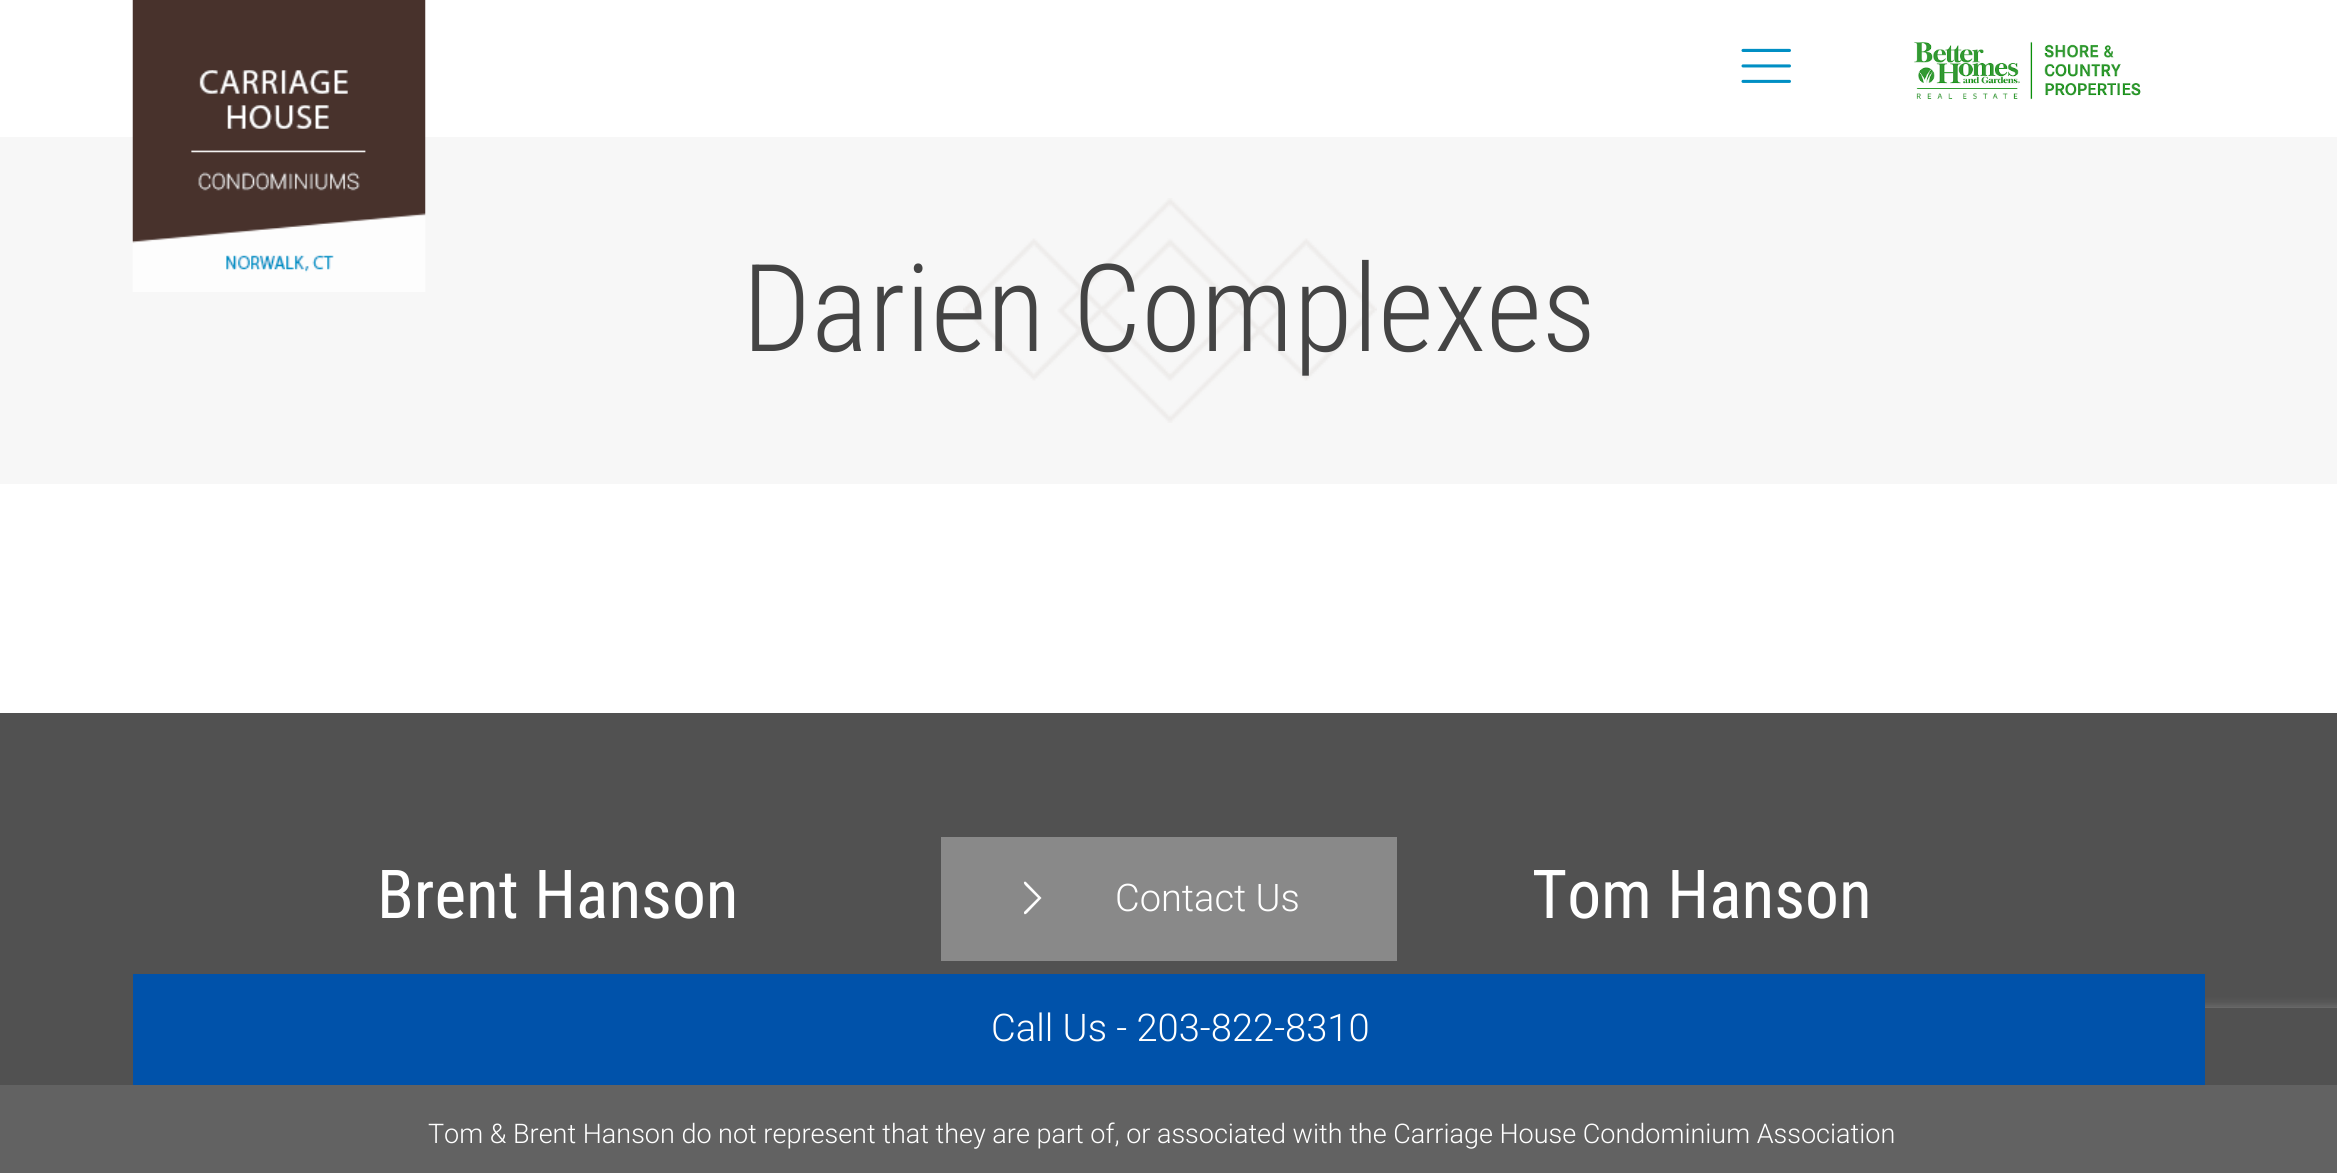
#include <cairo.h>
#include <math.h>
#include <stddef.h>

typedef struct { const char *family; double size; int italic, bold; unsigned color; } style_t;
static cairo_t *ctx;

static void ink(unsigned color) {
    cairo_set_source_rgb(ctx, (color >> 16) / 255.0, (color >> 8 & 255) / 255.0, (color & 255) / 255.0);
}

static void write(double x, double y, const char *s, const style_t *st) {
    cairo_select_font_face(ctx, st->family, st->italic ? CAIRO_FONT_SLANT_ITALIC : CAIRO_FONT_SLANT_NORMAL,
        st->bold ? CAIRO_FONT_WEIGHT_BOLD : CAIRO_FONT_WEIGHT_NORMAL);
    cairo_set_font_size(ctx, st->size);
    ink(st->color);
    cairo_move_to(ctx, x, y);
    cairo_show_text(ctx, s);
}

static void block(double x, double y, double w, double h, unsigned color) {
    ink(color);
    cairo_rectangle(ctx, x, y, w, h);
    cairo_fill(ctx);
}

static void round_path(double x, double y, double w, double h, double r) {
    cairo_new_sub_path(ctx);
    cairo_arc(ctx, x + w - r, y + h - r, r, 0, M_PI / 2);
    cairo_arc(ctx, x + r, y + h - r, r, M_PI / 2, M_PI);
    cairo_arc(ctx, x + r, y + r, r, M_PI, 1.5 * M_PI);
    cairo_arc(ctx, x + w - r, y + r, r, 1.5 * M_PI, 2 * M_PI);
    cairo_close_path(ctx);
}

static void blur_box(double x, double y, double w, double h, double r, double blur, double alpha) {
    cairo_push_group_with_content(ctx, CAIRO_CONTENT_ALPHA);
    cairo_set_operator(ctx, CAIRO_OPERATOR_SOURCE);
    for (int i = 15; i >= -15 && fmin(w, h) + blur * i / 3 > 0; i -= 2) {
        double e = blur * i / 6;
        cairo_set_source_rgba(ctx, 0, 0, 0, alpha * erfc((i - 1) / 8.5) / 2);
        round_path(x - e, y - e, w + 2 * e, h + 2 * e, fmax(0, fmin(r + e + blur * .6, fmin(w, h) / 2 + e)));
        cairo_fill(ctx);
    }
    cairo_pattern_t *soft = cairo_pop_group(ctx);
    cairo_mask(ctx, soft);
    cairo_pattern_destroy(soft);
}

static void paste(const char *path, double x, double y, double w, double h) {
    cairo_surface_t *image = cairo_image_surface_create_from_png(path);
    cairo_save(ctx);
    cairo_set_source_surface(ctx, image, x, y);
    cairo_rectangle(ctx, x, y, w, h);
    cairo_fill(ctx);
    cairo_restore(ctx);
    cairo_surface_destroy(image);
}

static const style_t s1 = {"Roboto Condensed Light", 121.5, 0, 0, 0x444444};
static const style_t s2 = {"Roboto Condensed", 67.5, 0, 0, 0xffffff};
static const style_t s3 = {"Roboto Light", 38, 0, 0, 0xffffff};
static const style_t s4 = {"Roboto Light", 38.1, 0, 0, 0xffffff};
static const style_t s5 = {"Roboto Light", 27, 0, 0, 0xffffff};

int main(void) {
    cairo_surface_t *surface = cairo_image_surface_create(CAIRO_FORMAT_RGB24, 2337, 1173);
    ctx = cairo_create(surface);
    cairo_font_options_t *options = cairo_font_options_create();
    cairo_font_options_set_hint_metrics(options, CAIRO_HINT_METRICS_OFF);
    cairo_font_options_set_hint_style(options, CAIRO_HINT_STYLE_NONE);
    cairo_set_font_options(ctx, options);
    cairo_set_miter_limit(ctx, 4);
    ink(0xffffff);
    cairo_paint(ctx);
    block(0, 137, 2337, 347, 0xf7f7f7);
    paste("pic1.png", 132, 0, 294, 292);
    paste("pic2.png", 1741, 48, 50, 35);
    paste("pic3.png", 1895, 23, 265, 92);
    paste("pic4.png", 963, 198, 414, 225);
    write(742, 351, "Darien Complexes", &s1);
    block(0, 713, 2337, 372, 0x515151);
    write(377, 918, "Brent Hanson", &s2);
    block(941, 837, 456, 124, 0x898989);
    ink(0xffffff);
    cairo_new_path(ctx);
    cairo_move_to(ctx, 1024, 912);
    cairo_line_to(ctx, 1038, 898);
    cairo_line_to(ctx, 1026.5, 886.5);
    cairo_curve_to(ctx, 1026, 886, 1022, 882.5, 1025, 881.5);
    cairo_line_to(ctx, 1026, 882);
    cairo_line_to(ctx, 1041.5, 898);
    cairo_line_to(ctx, 1041, 898.5);
    cairo_line_to(ctx, 1028.5, 911.5);
    cairo_curve_to(ctx, 1028.5, 911.5, 1024.5, 916.5, 1024, 913);
    cairo_close_path(ctx);
    cairo_fill(ctx);
    write(1115, 911, "Contact Us", &s3);
    write(1532, 918, "Tom Hanson", &s2);
    cairo_save(ctx);
    cairo_rectangle(ctx, 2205, 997, 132, 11);
    cairo_clip(ctx);
    ink(0x808080);
    blur_box(2180, 1008, 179, 135, 5, 5.5, 1);
    cairo_restore(ctx);
    block(133, 974, 2072, 111, 0x0052aa);
    write(991, 1041, "Call Us - 203-822-8310", &s4);
    block(0, 1085, 2337, 88, 0x626262);
    write(428, 1143, "Tom & Brent Hanson do not represent that they are part of, or associated with the Carriage House Condominium Association", &s5);
    cairo_surface_write_to_png(surface, "screenshot.png");
    cairo_font_options_destroy(options);
    cairo_destroy(ctx);
    cairo_surface_destroy(surface);
    return 0;
}
